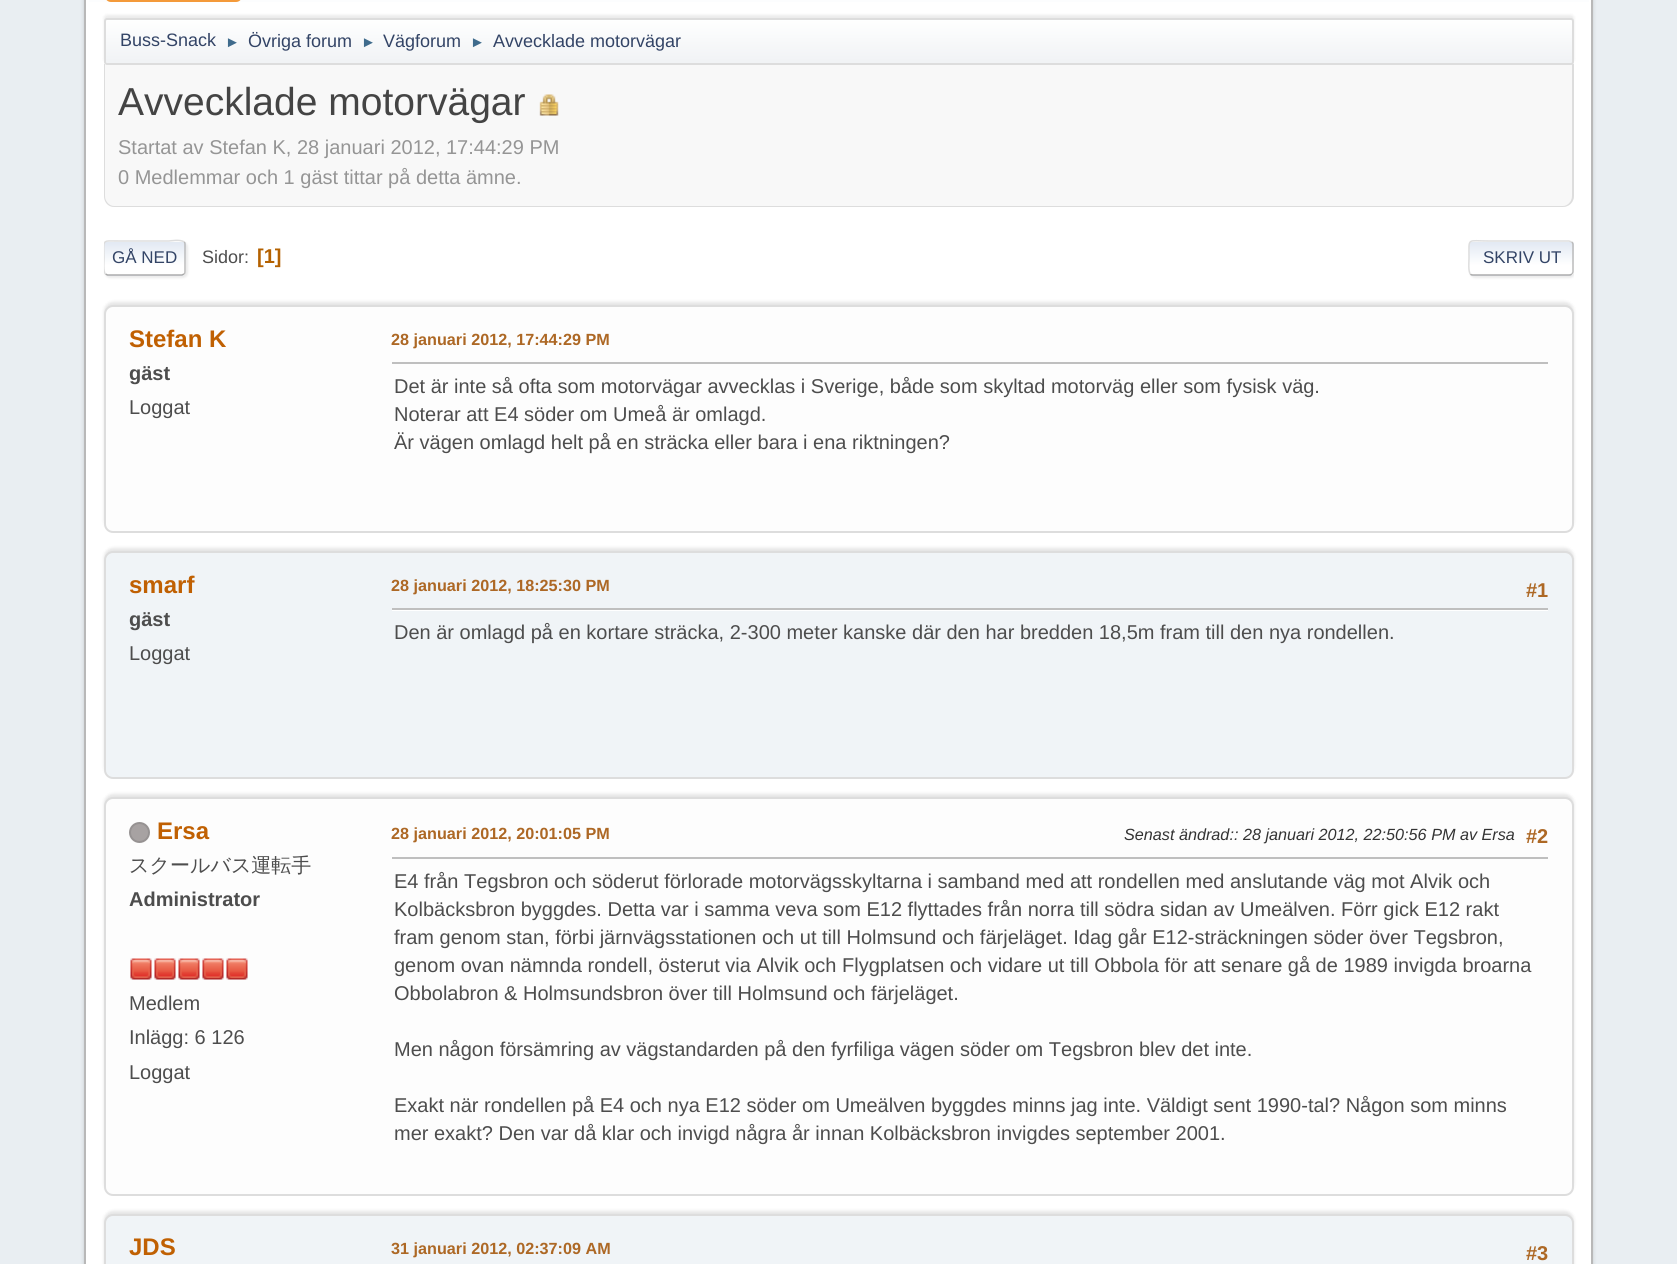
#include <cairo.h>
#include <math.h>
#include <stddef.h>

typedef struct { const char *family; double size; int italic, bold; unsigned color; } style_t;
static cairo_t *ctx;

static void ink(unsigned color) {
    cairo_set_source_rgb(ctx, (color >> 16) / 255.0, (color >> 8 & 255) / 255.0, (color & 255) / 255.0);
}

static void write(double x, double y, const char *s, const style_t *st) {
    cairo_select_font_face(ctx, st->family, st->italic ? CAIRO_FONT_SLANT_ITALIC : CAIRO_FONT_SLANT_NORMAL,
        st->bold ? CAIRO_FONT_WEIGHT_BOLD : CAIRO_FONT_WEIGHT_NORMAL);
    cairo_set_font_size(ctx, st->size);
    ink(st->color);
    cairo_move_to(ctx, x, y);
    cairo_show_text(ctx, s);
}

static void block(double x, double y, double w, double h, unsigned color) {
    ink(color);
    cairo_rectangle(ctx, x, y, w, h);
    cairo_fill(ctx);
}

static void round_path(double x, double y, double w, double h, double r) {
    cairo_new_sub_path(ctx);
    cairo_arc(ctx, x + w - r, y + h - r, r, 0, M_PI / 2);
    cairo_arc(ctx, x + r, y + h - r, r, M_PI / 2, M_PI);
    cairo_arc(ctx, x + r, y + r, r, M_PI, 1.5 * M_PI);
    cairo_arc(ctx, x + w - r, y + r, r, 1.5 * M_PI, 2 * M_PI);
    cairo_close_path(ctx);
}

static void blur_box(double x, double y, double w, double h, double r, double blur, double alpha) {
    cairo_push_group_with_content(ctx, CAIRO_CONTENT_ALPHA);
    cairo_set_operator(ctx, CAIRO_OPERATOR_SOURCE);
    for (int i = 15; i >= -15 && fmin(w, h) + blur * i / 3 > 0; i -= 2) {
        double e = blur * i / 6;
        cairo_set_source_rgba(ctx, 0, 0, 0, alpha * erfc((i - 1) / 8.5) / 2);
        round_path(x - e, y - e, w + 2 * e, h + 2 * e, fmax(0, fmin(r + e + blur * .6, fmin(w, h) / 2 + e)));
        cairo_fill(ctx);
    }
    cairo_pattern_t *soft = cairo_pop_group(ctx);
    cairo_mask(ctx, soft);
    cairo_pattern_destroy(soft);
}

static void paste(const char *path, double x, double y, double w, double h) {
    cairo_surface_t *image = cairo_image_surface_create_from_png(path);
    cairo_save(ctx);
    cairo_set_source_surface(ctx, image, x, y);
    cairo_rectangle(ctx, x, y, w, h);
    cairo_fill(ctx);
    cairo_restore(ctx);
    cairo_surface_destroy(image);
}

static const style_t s1 = {"Liberation Sans", 18, 0, 0, 0x334466};
static const style_t s2 = {"Liberation Sans", 15, 0, 0, 0x3f6b8c};
static const style_t s3 = {"Liberation Sans", 39, 0, 0, 0x444444};
static const style_t s4 = {"Liberation Sans", 20, 0, 0, 0x959595};
static const style_t s5 = {"Liberation Sans", 17, 0, 0, 0x334466};
static const style_t s6 = {"Liberation Sans", 18, 0, 0, 0x4d4d4d};
static const style_t s7 = {"Liberation Sans", 20, 0, 1, 0xb46100};
static const style_t s8 = {"Liberation Sans", 24, 0, 1, 0xc06002};
static const style_t s9 = {"Liberation Sans", 20, 0, 1, 0x4d4d4d};
static const style_t s10 = {"Liberation Sans", 20, 0, 0, 0x4d4d4d};
static const style_t s11 = {"Liberation Sans", 16.2, 0, 1, 0xad6825};
static const style_t s12 = {"Liberation Sans", 20, 0, 1, 0xad6825};
static const style_t s13 = {"WenQuanYi Zen Hei Medium", 20, 0, 0, 0x4d4d4d};
static const style_t s14 = {"Liberation Sans", 16.2, 1, 0, 0x333333};

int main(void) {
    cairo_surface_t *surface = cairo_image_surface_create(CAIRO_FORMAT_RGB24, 1677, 1264);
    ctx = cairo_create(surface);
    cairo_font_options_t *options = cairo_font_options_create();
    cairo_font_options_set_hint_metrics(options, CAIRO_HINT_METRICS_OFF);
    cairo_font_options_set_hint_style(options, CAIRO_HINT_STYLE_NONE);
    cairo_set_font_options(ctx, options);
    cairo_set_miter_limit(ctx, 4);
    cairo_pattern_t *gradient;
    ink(0xe9eef2);
    cairo_paint(ctx);
    ink(0x000000);
    blur_box(84, -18, 1509, 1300, 12, 2, 0.14);
    ink(0xffffff);
    cairo_rectangle(ctx, 85, -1, 1507, 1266);
    cairo_fill_preserve(ctx);
    ink(0xb8b8b8);
    cairo_stroke(ctx);
    gradient = cairo_pattern_create_linear(839, -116, 839, 68);
    cairo_pattern_add_color_stop_rgba(gradient, 0, 0.886, 0.914, 0.953, 1);
    cairo_pattern_add_color_stop_rgba(gradient, 0.7, 1, 1, 1, 1);
    cairo_set_source(ctx, gradient);
    cairo_pattern_destroy(gradient);
    cairo_rectangle(ctx, 89, 0, 1500, 2);
    cairo_fill(ctx);
    round_path(106, -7, 135, 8, 5);
    ink(0xf49a3a);
    cairo_stroke(ctx);
    ink(0x000000);
    blur_box(104, 15, 1470, 47, 3, 1.5, 0.08);
    cairo_save(ctx);
    round_path(104, 18, 1470, 47, 3);
    cairo_clip(ctx);
    gradient = cairo_pattern_create_linear(839, 19, 839, 63);
    cairo_pattern_add_color_stop_rgba(gradient, 0, 1, 1, 1, 1);
    cairo_pattern_add_color_stop_rgba(gradient, 0.95, 0.945, 0.953, 0.961, 1);
    cairo_set_source(ctx, gradient);
    cairo_pattern_destroy(gradient);
    cairo_rectangle(ctx, 104, 20, 1470, 43);
    cairo_fill(ctx);
    cairo_restore(ctx);
    round_path(105, 19, 1468, 45, 2);
    ink(0xdddddd);
    cairo_stroke(ctx);
    write(120, 46, "Buss-Snack", &s1);
    write(225, 47, "►", &s2);
    write(248, 47, "Övriga forum", &s1);
    write(361, 47, "►", &s2);
    write(383, 47, "Vägforum", &s1);
    write(470, 47, "►", &s2);
    write(493, 47, "Avvecklade motorvägar", &s1);
    ink(0xf8f8f8);
    cairo_new_path(ctx);
    cairo_move_to(ctx, 104, 65);
    cairo_line_to(ctx, 1574, 65);
    cairo_line_to(ctx, 1574, 196);
    cairo_curve_to(ctx, 1574, 202, 1569, 207, 1563, 207);
    cairo_line_to(ctx, 115, 207);
    cairo_curve_to(ctx, 109, 207, 104, 202, 104, 196);
    cairo_close_path(ctx);
    cairo_fill(ctx);
    ink(0xdddddd);
    cairo_set_fill_rule(ctx, CAIRO_FILL_RULE_EVEN_ODD);
    cairo_new_path(ctx);
    cairo_move_to(ctx, 104, 64);
    cairo_line_to(ctx, 1574, 64);
    cairo_line_to(ctx, 1574, 196);
    cairo_curve_to(ctx, 1574, 202, 1569, 207, 1563, 207);
    cairo_line_to(ctx, 114, 207);
    cairo_curve_to(ctx, 108, 207, 104, 202, 104, 196);
    cairo_close_path(ctx);
    cairo_move_to(ctx, 105, 64);
    cairo_line_to(ctx, 1572, 64);
    cairo_line_to(ctx, 1572, 196);
    cairo_curve_to(ctx, 1572, 201, 1568, 206, 1563, 206);
    cairo_line_to(ctx, 114, 206);
    cairo_curve_to(ctx, 109, 206, 105, 201, 105, 196);
    cairo_close_path(ctx);
    cairo_fill(ctx);
    write(118, 115, "Avvecklade motorvägar", &s3);
    paste("pic1.png", 539, 94, 20, 22);
    write(118, 154, "Startat av Stefan K, 28 januari 2012, 17:44:29 PM", &s4);
    write(118, 184, "0 Medlemmar och 1 gäst tittar på detta ämne.", &s4);
    ink(0xdddddd);
    blur_box(105, 242, 83, 36, 5, 1, 0.57);
    ink(0xffffff);
    round_path(104, 240, 82, 36, 5);
    cairo_fill(ctx);
    cairo_save(ctx);
    cairo_set_fill_rule(ctx, CAIRO_FILL_RULE_WINDING);
    round_path(104, 240, 82, 36, 5);
    cairo_clip(ctx);
    gradient = cairo_pattern_create_linear(145, 242, 145, 275);
    cairo_pattern_add_color_stop_rgba(gradient, 0, 0.886, 0.914, 0.953, 1);
    cairo_pattern_add_color_stop_rgba(gradient, 0.7, 1, 1, 1, 1);
    cairo_set_source(ctx, gradient);
    cairo_pattern_destroy(gradient);
    cairo_rectangle(ctx, 104, 242, 82, 33);
    cairo_fill(ctx);
    gradient = cairo_pattern_create_linear(145, 275, 145, 308);
    cairo_pattern_add_color_stop_rgba(gradient, 0, 0.886, 0.914, 0.953, 1);
    cairo_pattern_add_color_stop_rgba(gradient, 0.7, 1, 1, 1, 1);
    cairo_set_source(ctx, gradient);
    cairo_pattern_destroy(gradient);
    cairo_rectangle(ctx, 104, 275, 82, 1);
    cairo_fill(ctx);
    cairo_restore(ctx);
    cairo_new_path(ctx);
    cairo_move_to(ctx, 184, 242);
    cairo_curve_to(ctx, 185, 242.5, 185, 243.5, 185, 244.5);
    cairo_line_to(ctx, 185, 271.5);
    cairo_curve_to(ctx, 185, 272.5, 185, 273.5, 184, 274);
    ink(0xbbbbbb);
    cairo_set_line_width(ctx, 1.5);
    cairo_stroke(ctx);
    cairo_new_path(ctx);
    cairo_move_to(ctx, 184, 274);
    cairo_line_to(ctx, 182, 275);
    cairo_line_to(ctx, 107.5, 275);
    cairo_line_to(ctx, 105.5, 274);
    ink(0xaaaaaa);
    cairo_stroke(ctx);
    cairo_save(ctx);
    cairo_set_fill_rule(ctx, CAIRO_FILL_RULE_WINDING);
    cairo_rectangle(ctx, 104, 230, 1470, 57);
    cairo_clip(ctx);
    cairo_new_path(ctx);
    cairo_move_to(ctx, 105.5, 274);
    cairo_curve_to(ctx, 103, 272, 104, 261, 104, 258);
    cairo_curve_to(ctx, 104, 238.5, 101, 241, 120, 241);
    cairo_line_to(ctx, 169, 241);
    cairo_curve_to(ctx, 169.5, 241, 181, 239, 184, 242);
    ink(0xdddddd);
    cairo_stroke(ctx);
    cairo_restore(ctx);
    write(112, 263, "GÅ NED", &s5);
    write(202, 263, "Sidor:", &s6);
    write(257, 263, "[1]", &s7);
    cairo_save(ctx);
    cairo_set_fill_rule(ctx, CAIRO_FILL_RULE_WINDING);
    cairo_rectangle(ctx, 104, 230, 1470, 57);
    cairo_clip(ctx);
    ink(0xdddddd);
    blur_box(1470, 242, 105, 36, 5, 1, 0.57);
    cairo_restore(ctx);
    ink(0xffffff);
    round_path(1469, 240, 105, 36, 5);
    cairo_fill(ctx);
    cairo_save(ctx);
    cairo_set_fill_rule(ctx, CAIRO_FILL_RULE_WINDING);
    round_path(1469, 240, 105, 36, 5);
    cairo_clip(ctx);
    gradient = cairo_pattern_create_linear(1521, 242, 1521, 275);
    cairo_pattern_add_color_stop_rgba(gradient, 0, 0.886, 0.914, 0.953, 1);
    cairo_pattern_add_color_stop_rgba(gradient, 0.7, 1, 1, 1, 1);
    cairo_set_source(ctx, gradient);
    cairo_pattern_destroy(gradient);
    cairo_rectangle(ctx, 1469, 242, 105, 33);
    cairo_fill(ctx);
    gradient = cairo_pattern_create_linear(1521, 275, 1521, 308);
    cairo_pattern_add_color_stop_rgba(gradient, 0, 0.886, 0.914, 0.953, 1);
    cairo_pattern_add_color_stop_rgba(gradient, 0.7, 1, 1, 1, 1);
    cairo_set_source(ctx, gradient);
    cairo_pattern_destroy(gradient);
    cairo_rectangle(ctx, 1469, 275, 105, 1);
    cairo_fill(ctx);
    cairo_restore(ctx);
    cairo_new_path(ctx);
    cairo_move_to(ctx, 1571.5, 242);
    cairo_curve_to(ctx, 1572.5, 242.5, 1573, 243.5, 1573, 244.5);
    cairo_line_to(ctx, 1573, 271.5);
    cairo_curve_to(ctx, 1573, 272.5, 1572.5, 273.5, 1571.5, 274);
    ink(0xbbbbbb);
    cairo_stroke(ctx);
    cairo_new_path(ctx);
    cairo_move_to(ctx, 1571.5, 274);
    cairo_curve_to(ctx, 1571, 275, 1570, 275, 1569, 275);
    cairo_line_to(ctx, 1473, 275);
    cairo_curve_to(ctx, 1472, 275, 1471, 275, 1470.5, 274);
    ink(0xaaaaaa);
    cairo_stroke(ctx);
    cairo_new_path(ctx);
    cairo_move_to(ctx, 1470.5, 274);
    cairo_curve_to(ctx, 1468, 272, 1469, 261, 1469, 258);
    cairo_curve_to(ctx, 1469, 237, 1466.5, 241, 1489, 241);
    cairo_line_to(ctx, 1569, 241);
    cairo_line_to(ctx, 1571.5, 242);
    ink(0xdddddd);
    cairo_stroke(ctx);
    write(1483, 263, "SKRIV UT", &s5);
    ink(0x000000);
    blur_box(104, 302, 1470, 228, 9, 1.5, 0.1);
    ink(0xfdfdfd);
    round_path(105, 306, 1468, 226, 8);
    cairo_fill_preserve(ctx);
    ink(0xdddddd);
    cairo_set_line_width(ctx, 2);
    cairo_stroke(ctx);
    write(129, 347, "Stefan K", &s8);
    write(129, 380, "gäst", &s9);
    write(129, 414, "Loggat", &s10);
    write(391, 345, "28 januari 2012, 17:44:29 PM", &s11);
    block(392, 362, 1156, 2, 0xbfbfbf);
    write(394, 393, "Det är inte så ofta som motorvägar avvecklas i Sverige, både som skyltad motorväg eller som fysisk väg.", &s10);
    write(394, 421, "Noterar att E4 söder om Umeå är omlagd.", &s10);
    write(394, 449, "Är vägen omlagd helt på en sträcka eller bara i ena riktningen?", &s10);
    ink(0x000000);
    blur_box(104, 548, 1470, 228, 9, 1.5, 0.1);
    ink(0xf0f4f7);
    round_path(105, 552, 1468, 226, 8);
    cairo_fill_preserve(ctx);
    ink(0xdddddd);
    cairo_stroke(ctx);
    write(129, 593, "smarf", &s8);
    write(129, 626, "gäst", &s9);
    write(129, 660, "Loggat", &s10);
    write(391, 591, "28 januari 2012, 18:25:30 PM", &s11);
    write(1526, 597, "#1", &s12);
    block(392, 610, 1156, 1, 0xffffff);
    block(392, 608, 1156, 2, 0xbfbfbf);
    write(394, 639, "Den är omlagd på en kortare sträcka, 2-300 meter kanske där den har bredden 18,5m fram till den nya rondellen.", &s10);
    ink(0x000000);
    blur_box(104, 794, 1470, 399, 9, 1.5, 0.1);
    ink(0xfdfdfd);
    round_path(105, 798, 1468, 397, 8);
    cairo_fill_preserve(ctx);
    ink(0xdddddd);
    cairo_stroke(ctx);
    ink(0xa7a2a2);
    cairo_arc(ctx, 139.5, 832.5, 9.5, 0, 2 * M_PI);
    cairo_fill_preserve(ctx);
    ink(0x969292);
    cairo_stroke(ctx);
    write(157, 839, "Ersa", &s8);
    write(129, 872, "スクールバス運転手", &s13);
    write(129, 906, "Administrator", &s9);
    paste("pic2.png", 130, 958, 22, 22);
    paste("pic2.png", 154, 958, 22, 22);
    paste("pic2.png", 178, 958, 22, 22);
    paste("pic2.png", 202, 958, 22, 22);
    paste("pic2.png", 226, 958, 22, 22);
    write(129, 1010, "Medlem", &s10);
    write(129, 1044, "Inlägg: 6 126", &s10);
    write(129, 1079, "Loggat", &s10);
    write(391, 839, "28 januari 2012, 20:01:05 PM", &s11);
    write(1124, 840, "Senast ändrad:: 28 januari 2012, 22:50:56 PM av Ersa", &s14);
    write(1526, 843, "#2", &s12);
    block(392, 857, 1156, 2, 0xbfbfbf);
    write(394, 888, "E4 från Tegsbron och söderut förlorade motorvägsskyltarna i samband med att rondellen med anslutande väg mot Alvik och", &s10);
    write(394, 916, "Kolbäcksbron byggdes. Detta var i samma veva som E12 flyttades från norra till södra sidan av Umeälven. Förr gick E12 rakt", &s10);
    write(394, 944, "fram genom stan, förbi järnvägsstationen och ut till Holmsund och färjeläget. Idag går E12-sträckningen söder över Tegsbron,", &s10);
    write(394, 972, "genom ovan nämnda rondell, österut via Alvik och Flygplatsen och vidare ut till Obbola för att senare gå de 1989 invigda broarna", &s10);
    write(394, 1000, "Obbolabron & Holmsundsbron över till Holmsund och färjeläget.", &s10);
    write(394, 1056, "Men någon försämring av vägstandarden på den fyrfiliga vägen söder om Tegsbron blev det inte.", &s10);
    write(394, 1112, "Exakt när rondellen på E4 och nya E12 söder om Umeälven byggdes minns jag inte. Väldigt sent 1990-tal? Någon som minns", &s10);
    write(394, 1140, "mer exakt? Den var då klar och invigd några år innan Kolbäcksbron invigdes september 2001.", &s10);
    ink(0x000000);
    blur_box(104, 1211, 1470, 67, 9, 1.5, 0.1);
    ink(0xf0f4f7);
    round_path(105, 1215, 1468, 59, 8);
    cairo_fill_preserve(ctx);
    ink(0xdddddd);
    cairo_stroke(ctx);
    write(129, 1255, "JDS", &s8);
    write(391, 1254, "31 januari 2012, 02:37:09 AM", &s11);
    write(1526, 1260, "#3", &s12);
    cairo_surface_write_to_png(surface, "screenshot.png");
    cairo_font_options_destroy(options);
    cairo_destroy(ctx);
    cairo_surface_destroy(surface);
    return 0;
}
